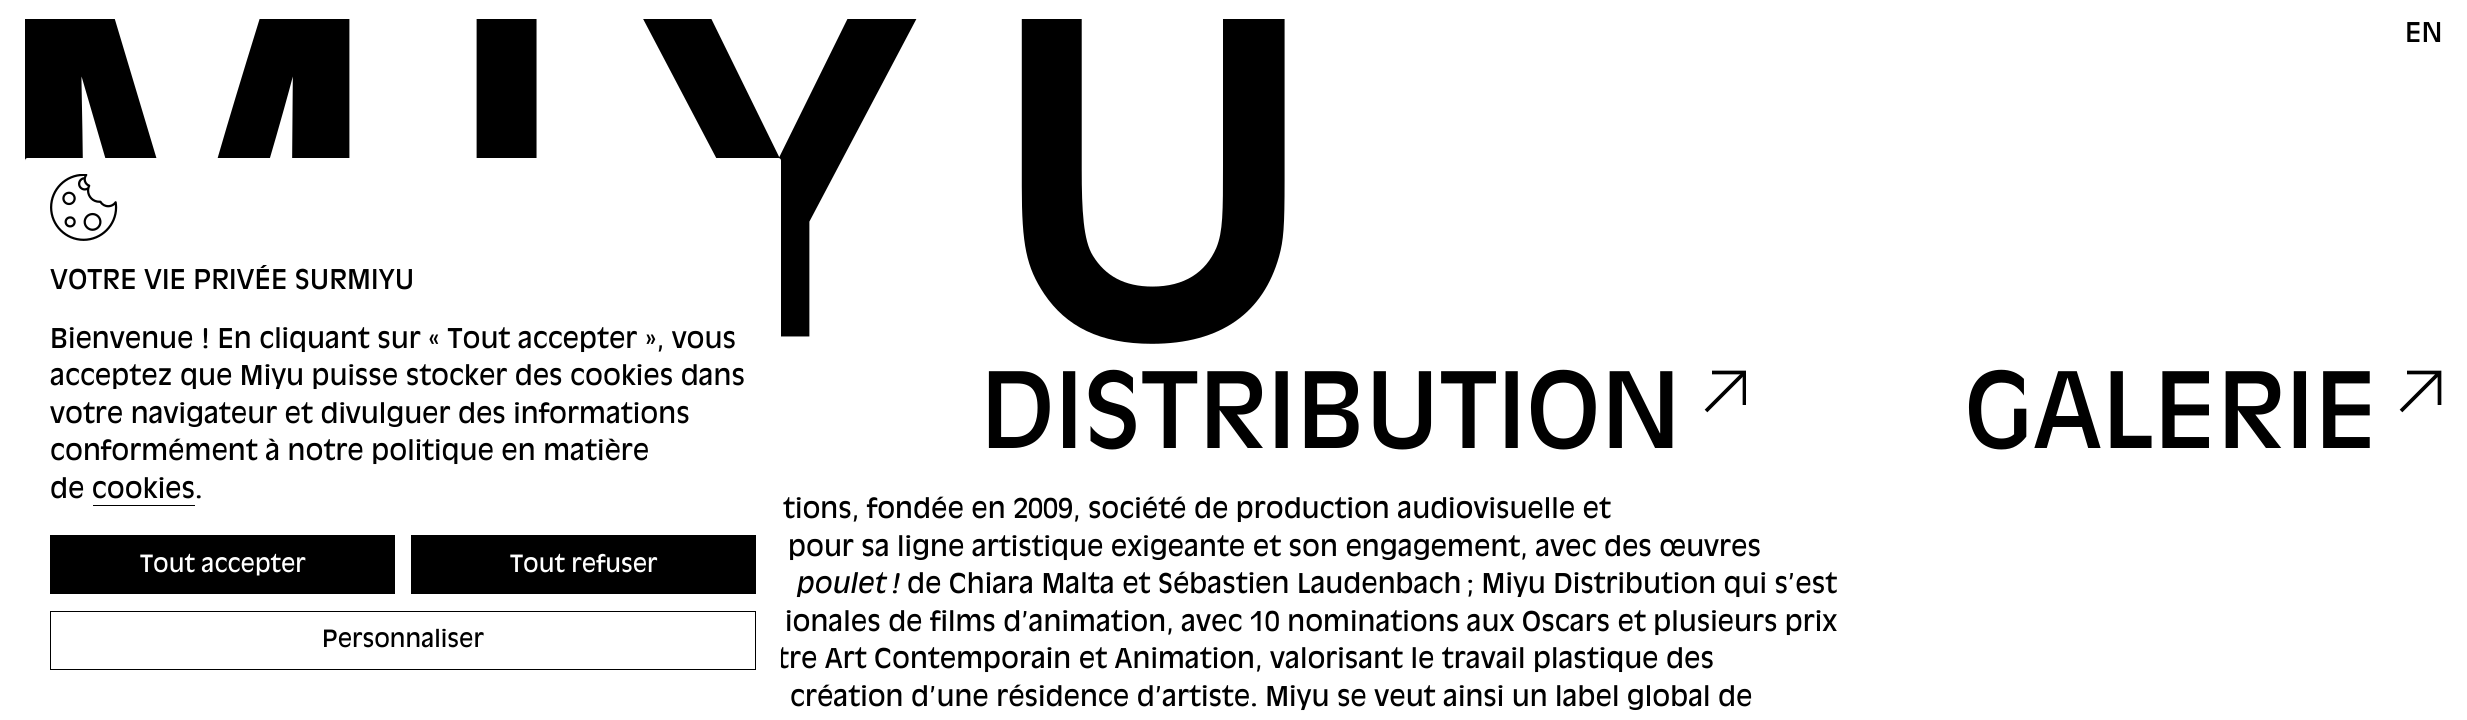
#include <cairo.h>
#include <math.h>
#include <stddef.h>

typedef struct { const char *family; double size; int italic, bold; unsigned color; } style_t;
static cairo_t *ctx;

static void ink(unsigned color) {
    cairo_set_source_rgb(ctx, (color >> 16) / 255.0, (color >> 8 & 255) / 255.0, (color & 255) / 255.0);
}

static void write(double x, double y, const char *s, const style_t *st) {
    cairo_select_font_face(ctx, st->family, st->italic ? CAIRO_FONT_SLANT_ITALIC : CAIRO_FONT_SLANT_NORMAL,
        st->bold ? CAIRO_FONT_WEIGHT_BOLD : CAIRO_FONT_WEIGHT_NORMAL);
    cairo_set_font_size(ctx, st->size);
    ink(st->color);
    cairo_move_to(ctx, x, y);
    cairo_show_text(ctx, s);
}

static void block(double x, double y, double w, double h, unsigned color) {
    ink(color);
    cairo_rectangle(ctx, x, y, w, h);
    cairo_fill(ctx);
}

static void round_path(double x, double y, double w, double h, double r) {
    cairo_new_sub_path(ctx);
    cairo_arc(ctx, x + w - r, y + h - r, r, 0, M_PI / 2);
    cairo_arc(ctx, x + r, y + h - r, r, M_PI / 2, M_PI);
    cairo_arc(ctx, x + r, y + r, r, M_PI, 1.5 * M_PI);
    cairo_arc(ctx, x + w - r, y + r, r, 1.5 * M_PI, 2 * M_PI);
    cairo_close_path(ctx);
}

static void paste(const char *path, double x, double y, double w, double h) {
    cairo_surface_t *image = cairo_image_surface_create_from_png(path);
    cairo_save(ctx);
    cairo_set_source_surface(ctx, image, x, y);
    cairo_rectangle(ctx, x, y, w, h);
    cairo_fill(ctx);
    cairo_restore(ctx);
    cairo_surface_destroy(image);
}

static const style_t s1 = {"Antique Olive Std", 26.9, 0, 0, 0x000000};
static const style_t s2 = {"Antique Olive Std", 23.5, 0, 0, 0xffffff};
static const style_t s3 = {"Antique Olive Std", 23.5, 0, 0, 0x000000};
static const style_t s4 = {"Antique Olive Std", 103.5, 0, 0, 0x000000};
static const style_t s5 = {"Antique Olive Std", 26.9, 1, 0, 0x000000};

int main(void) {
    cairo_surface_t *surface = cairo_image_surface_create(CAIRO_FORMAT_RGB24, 2467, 720);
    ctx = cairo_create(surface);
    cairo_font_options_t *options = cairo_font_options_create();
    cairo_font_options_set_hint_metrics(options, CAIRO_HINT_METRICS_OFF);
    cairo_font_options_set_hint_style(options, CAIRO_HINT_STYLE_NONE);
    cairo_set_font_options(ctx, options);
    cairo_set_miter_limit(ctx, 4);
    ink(0xffffff);
    cairo_paint(ctx);
    paste("pic1.png", 25, 19, 1260, 325);
    write(2405, 42, "EN", &s1);
    write(777, 668, "tre Art Contemporain et Animation, valorisant le travail plastique des", &s1);
    ink(0xffffff);
    round_path(25, 158, 756, 537, 2.5);
    cairo_fill(ctx);
    paste("pic2.png", 50, 174, 68, 67);
    write(50, 289, "VOTRE VIE PRIVÉE SURMIYU", &s1);
    write(50, 348, "Bienvenue ! En cliquant sur « Tout accepter », vous", &s1);
    write(50, 385, "acceptez que Miyu puisse stocker des cookies dans", &s1);
    write(50, 423, "votre navigateur et divulguer des informations", &s1);
    write(50, 460, "conformément à notre politique en matière", &s1);
    write(50, 498, "de cookies.", &s1);
    block(93, 505, 102, 1, 0x000000);
    block(50, 535, 345, 59, 0x000000);
    write(140, 572, "Tout accepter", &s2);
    block(411, 535, 345, 59, 0x000000);
    write(510, 572, "Tout refuser", &s2);
    cairo_rectangle(ctx, 50.5, 611.5, 705, 58);
    ink(0x000000);
    cairo_set_line_width(ctx, 1);
    cairo_stroke(ctx);
    write(322, 647, "Personnaliser", &s3);
    write(980, 448, "DISTRIBUTION", &s4);
    cairo_save(ctx);
    cairo_rectangle(ctx, 1695, 370, 51, 51);
    cairo_clip(ctx);
    cairo_new_path(ctx);
    cairo_move_to(ctx, 1744.5, 405);
    cairo_line_to(ctx, 1744.5, 372.5);
    cairo_line_to(ctx, 1712, 372.5);
    cairo_set_line_width(ctx, 3.7);
    cairo_stroke(ctx);
    cairo_restore(ctx);
    cairo_new_path(ctx);
    cairo_move_to(ctx, 1744.5, 372.5);
    cairo_line_to(ctx, 1706, 411);
    cairo_set_line_width(ctx, 3.7);
    cairo_stroke(ctx);
    write(1964, 448, "GALERIE", &s4);
    cairo_new_path(ctx);
    cairo_move_to(ctx, 2439.5, 405);
    cairo_line_to(ctx, 2439.5, 372.5);
    cairo_line_to(ctx, 2407, 372.5);
    cairo_move_to(ctx, 2439.5, 372.5);
    cairo_line_to(ctx, 2401, 411);
    cairo_stroke(ctx);
    write(783, 518, "tions, fondée en 2009, société de production audiovisuelle et", &s1);
    write(788, 556, "pour sa ligne artistique exigeante et son engagement, avec des œuvres", &s1);
    write(796, 593, "poulet !", &s5);
    write(907, 593, "de Chiara Malta et Sébastien Laudenbach ; Miyu Distribution qui s’est", &s1);
    write(785, 631, "ionales de films d’animation, avec 10 nominations aux Oscars et plusieurs prix", &s1);
    write(790, 706, "création d’une résidence d’artiste. Miyu se veut ainsi un label global de", &s1);
    cairo_surface_write_to_png(surface, "screenshot.png");
    cairo_font_options_destroy(options);
    cairo_destroy(ctx);
    cairo_surface_destroy(surface);
    return 0;
}
